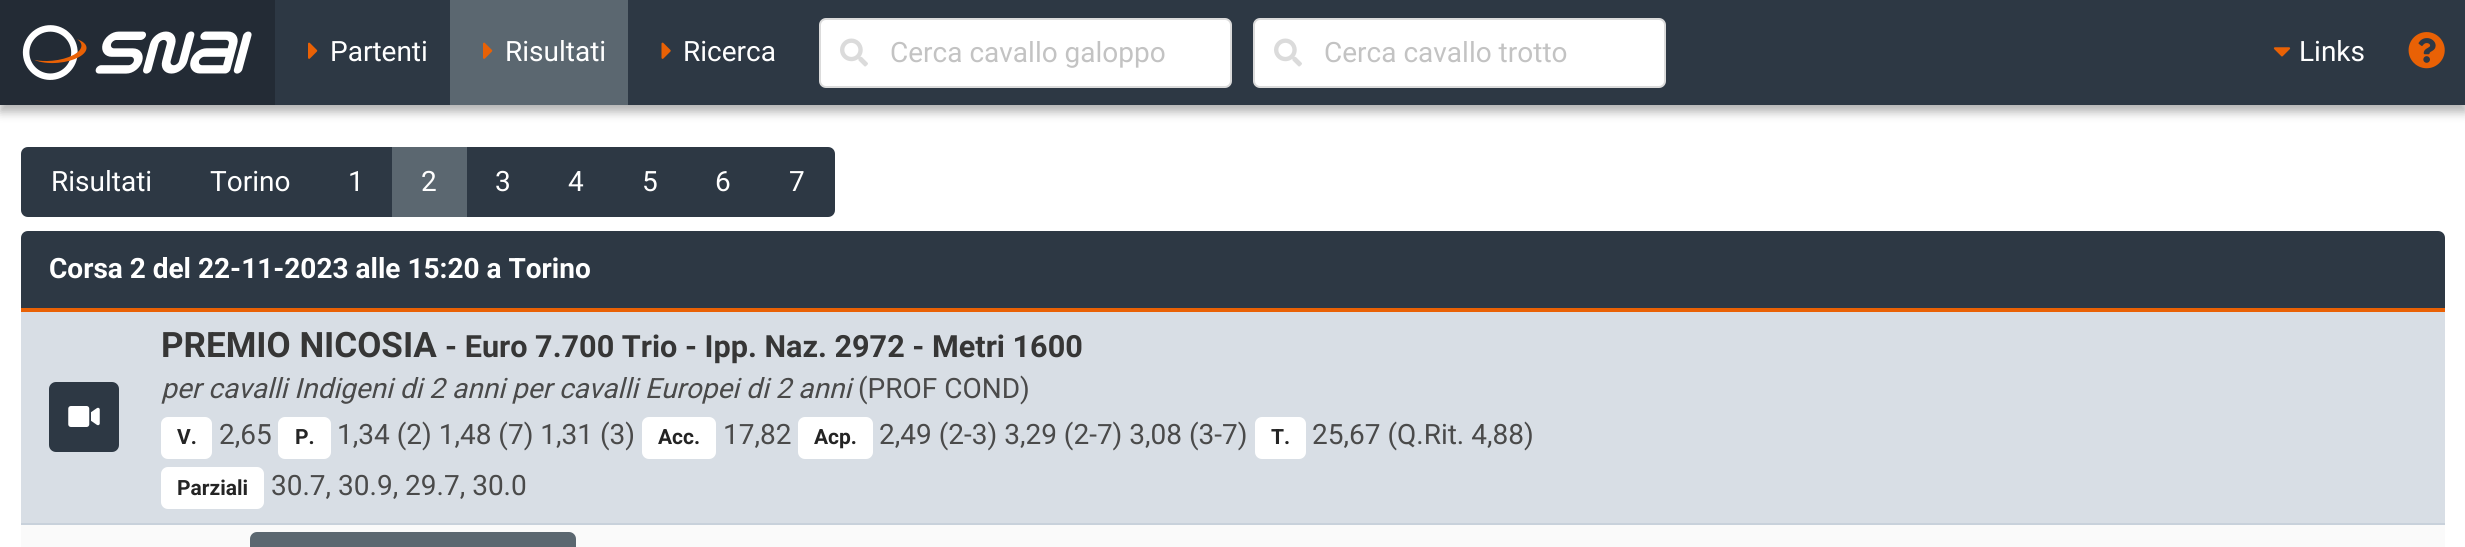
#include <cairo.h>
#include <math.h>
#include <stddef.h>

typedef struct { const char *family; double size; int italic, bold; unsigned color; } style_t;
static cairo_t *ctx;

static void ink(unsigned color) {
    cairo_set_source_rgb(ctx, (color >> 16) / 255.0, (color >> 8 & 255) / 255.0, (color & 255) / 255.0);
}

static void write(double x, double y, const char *s, const style_t *st) {
    cairo_select_font_face(ctx, st->family, st->italic ? CAIRO_FONT_SLANT_ITALIC : CAIRO_FONT_SLANT_NORMAL,
        st->bold ? CAIRO_FONT_WEIGHT_BOLD : CAIRO_FONT_WEIGHT_NORMAL);
    cairo_set_font_size(ctx, st->size);
    ink(st->color);
    cairo_move_to(ctx, x, y);
    cairo_show_text(ctx, s);
}

static void block(double x, double y, double w, double h, unsigned color) {
    ink(color);
    cairo_rectangle(ctx, x, y, w, h);
    cairo_fill(ctx);
}

static void round_path(double x, double y, double w, double h, double r) {
    cairo_new_sub_path(ctx);
    cairo_arc(ctx, x + w - r, y + h - r, r, 0, M_PI / 2);
    cairo_arc(ctx, x + r, y + h - r, r, M_PI / 2, M_PI);
    cairo_arc(ctx, x + r, y + r, r, M_PI, 1.5 * M_PI);
    cairo_arc(ctx, x + w - r, y + r, r, 1.5 * M_PI, 2 * M_PI);
    cairo_close_path(ctx);
}

static void blur_box(double x, double y, double w, double h, double r, double blur, double alpha) {
    cairo_push_group_with_content(ctx, CAIRO_CONTENT_ALPHA);
    cairo_set_operator(ctx, CAIRO_OPERATOR_SOURCE);
    for (int i = 15; i >= -15 && fmin(w, h) + blur * i / 3 > 0; i -= 2) {
        double e = blur * i / 6;
        cairo_set_source_rgba(ctx, 0, 0, 0, alpha * erfc((i - 1) / 8.5) / 2);
        round_path(x - e, y - e, w + 2 * e, h + 2 * e, fmax(0, fmin(r + e + blur * .6, fmin(w, h) / 2 + e)));
        cairo_fill(ctx);
    }
    cairo_pattern_t *soft = cairo_pop_group(ctx);
    cairo_mask(ctx, soft);
    cairo_pattern_destroy(soft);
}

static void paste(const char *path, double x, double y, double w, double h) {
    cairo_surface_t *image = cairo_image_surface_create_from_png(path);
    cairo_save(ctx);
    cairo_set_source_surface(ctx, image, x, y);
    cairo_rectangle(ctx, x, y, w, h);
    cairo_fill(ctx);
    cairo_restore(ctx);
    cairo_surface_destroy(image);
}

static const style_t s1 = {"Roboto", 28, 0, 0, 0xffffff};
static const style_t s2 = {"Roboto", 28, 0, 0, 0xc3c3c3};
static const style_t s3 = {"Roboto", 28, 0, 1, 0xffffff};
static const style_t s4 = {"Roboto", 35, 0, 1, 0x363636};
static const style_t s5 = {"Roboto", 30.6, 0, 1, 0x363636};
static const style_t s6 = {"Roboto", 28, 1, 0, 0x4a4a4a};
static const style_t s7 = {"Roboto", 28, 0, 0, 0x4a4a4a};
static const style_t s8 = {"Roboto", 21, 0, 1, 0x242424};

int main(void) {
    cairo_surface_t *surface = cairo_image_surface_create(CAIRO_FORMAT_RGB24, 2465, 547);
    ctx = cairo_create(surface);
    cairo_font_options_t *options = cairo_font_options_create();
    cairo_font_options_set_hint_metrics(options, CAIRO_HINT_METRICS_OFF);
    cairo_font_options_set_hint_style(options, CAIRO_HINT_STYLE_NONE);
    cairo_set_font_options(ctx, options);
    cairo_set_miter_limit(ctx, 4);
    ink(0xffffff);
    cairo_paint(ctx);
    ink(0x000000);
    blur_box(0, 7, 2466, 105, 0, 5, 0.3);
    block(275, 0, 2190, 105, 0x2d3844);
    block(0, 0, 275, 105, 0x232b35);
    paste("pic1.png", 22, 25, 230, 55);
    paste("pic2.png", 308, 42, 10, 17);
    write(330, 61, "Partenti", &s1);
    block(450, 0, 178, 105, 0x5b6770);
    paste("pic3.png", 483, 42, 10, 17);
    write(505, 61, "Risultati", &s1);
    paste("pic4.png", 661, 42, 10, 17);
    write(683, 61, "Ricerca", &s1);
    round_path(820, 19, 411, 68, 6);
    cairo_fill_preserve(ctx);
    ink(0xdbdbdb);
    cairo_stroke(ctx);
    paste("pic5.png", 840, 38, 28, 29);
    write(890, 62, "Cerca cavallo galoppo", &s2);
    ink(0xffffff);
    round_path(1254, 19, 411, 68, 6);
    cairo_fill_preserve(ctx);
    ink(0xdbdbdb);
    cairo_stroke(ctx);
    paste("pic5.png", 1274, 38, 28, 29);
    write(1324, 62, "Cerca cavallo trotto", &s2);
    paste("pic6.png", 2273, 47, 18, 10);
    write(2299, 61, "Links", &s1);
    paste("pic7.png", 2408, 32, 37, 37);
    ink(0x2d3844);
    cairo_new_path(ctx);
    cairo_move_to(ctx, 28, 147);
    cairo_line_to(ctx, 182, 147);
    cairo_line_to(ctx, 182, 217);
    cairo_line_to(ctx, 28, 217);
    cairo_curve_to(ctx, 24, 217, 21, 214, 21, 210);
    cairo_line_to(ctx, 21, 154);
    cairo_curve_to(ctx, 21, 150, 24, 147, 28, 147);
    cairo_close_path(ctx);
    cairo_fill(ctx);
    write(51, 191, "Risultati", &s1);
    block(182, 147, 210, 70, 0x2d3844);
    write(210, 191, "Torino", &s1);
    write(348, 191, "1", &s1);
    block(392, 147, 75, 70, 0x5b6770);
    write(421, 191, "2", &s1);
    block(467, 147, 293, 70, 0x2d3844);
    write(495, 191, "3", &s1);
    write(568, 191, "4", &s1);
    write(642, 191, "5", &s1);
    write(715, 191, "6", &s1);
    ink(0x2d3844);
    cairo_new_path(ctx);
    cairo_move_to(ctx, 760, 147);
    cairo_line_to(ctx, 828, 147);
    cairo_curve_to(ctx, 832, 147, 835, 150, 835, 154);
    cairo_line_to(ctx, 835, 210);
    cairo_curve_to(ctx, 835, 214, 832, 217, 828, 217);
    cairo_line_to(ctx, 760, 217);
    cairo_close_path(ctx);
    cairo_fill(ctx);
    write(789, 191, "7", &s1);
    ink(0x2d3844);
    cairo_new_path(ctx);
    cairo_move_to(ctx, 28, 231);
    cairo_line_to(ctx, 2438, 231);
    cairo_curve_to(ctx, 2442, 231, 2445, 234, 2445, 238);
    cairo_line_to(ctx, 2445, 312);
    cairo_line_to(ctx, 21, 312);
    cairo_line_to(ctx, 21, 238);
    cairo_curve_to(ctx, 21, 234, 24, 231, 28, 231);
    cairo_close_path(ctx);
    cairo_fill(ctx);
    block(21, 308, 2424, 4, 0xe96105);
    write(49, 278, "Corsa 2 del 22-11-2023 alle 15:20 a Torino", &s3);
    block(21, 312, 2424, 211, 0xd8dee5);
    block(21, 523, 2424, 2, 0xc8d1db);
    ink(0x2d3844);
    round_path(49, 382, 70, 70, 7);
    cairo_fill(ctx);
    paste("pic8.png", 68, 406, 32, 21);
    write(161, 357, "PREMIO NICOSIA", &s4);
    write(445, 357, "- Euro 7.700 Trio - Ipp. Naz. 2972 - Metri 1600", &s5);
    write(161, 398, "per cavalli Indigeni di 2 anni per cavalli Europei di 2 anni", &s6);
    write(858, 398, "(PROF COND)", &s7);
    ink(0xffffff);
    round_path(161, 417, 51, 42, 7);
    cairo_fill(ctx);
    write(177, 444, "V.", &s8);
    write(219, 444, "2,65", &s7);
    ink(0xffffff);
    round_path(278, 417, 53, 42, 7);
    cairo_fill(ctx);
    write(295, 444, "P.", &s8);
    write(337, 444, "1,34 (2) 1,48 (7) 1,31 (3)", &s7);
    ink(0xffffff);
    round_path(642, 417, 74, 42, 7);
    cairo_fill(ctx);
    write(658, 444, "Acc.", &s8);
    write(723, 444, "17,82", &s7);
    ink(0xffffff);
    round_path(798, 417, 75, 42, 7);
    cairo_fill(ctx);
    write(814, 444, "Acp.", &s8);
    write(879, 444, "2,49 (2-3) 3,29 (2-7) 3,08 (3-7)", &s7);
    ink(0xffffff);
    round_path(1255, 417, 51, 42, 7);
    cairo_fill(ctx);
    write(1271, 444, "T.", &s8);
    write(1312, 444, "25,67 (Q.Rit. 4,88)", &s7);
    ink(0xffffff);
    round_path(161, 467, 103, 42, 7);
    cairo_fill(ctx);
    write(177, 495, "Parziali", &s8);
    write(271, 495, "30.7, 30.9, 29.7, 30.0", &s7);
    block(21, 525, 2424, 22, 0xfafafa);
    ink(0x5b6770);
    round_path(250, 532, 326, 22, 7);
    cairo_fill(ctx);
    cairo_surface_write_to_png(surface, "screenshot.png");
    cairo_font_options_destroy(options);
    cairo_destroy(ctx);
    cairo_surface_destroy(surface);
    return 0;
}
